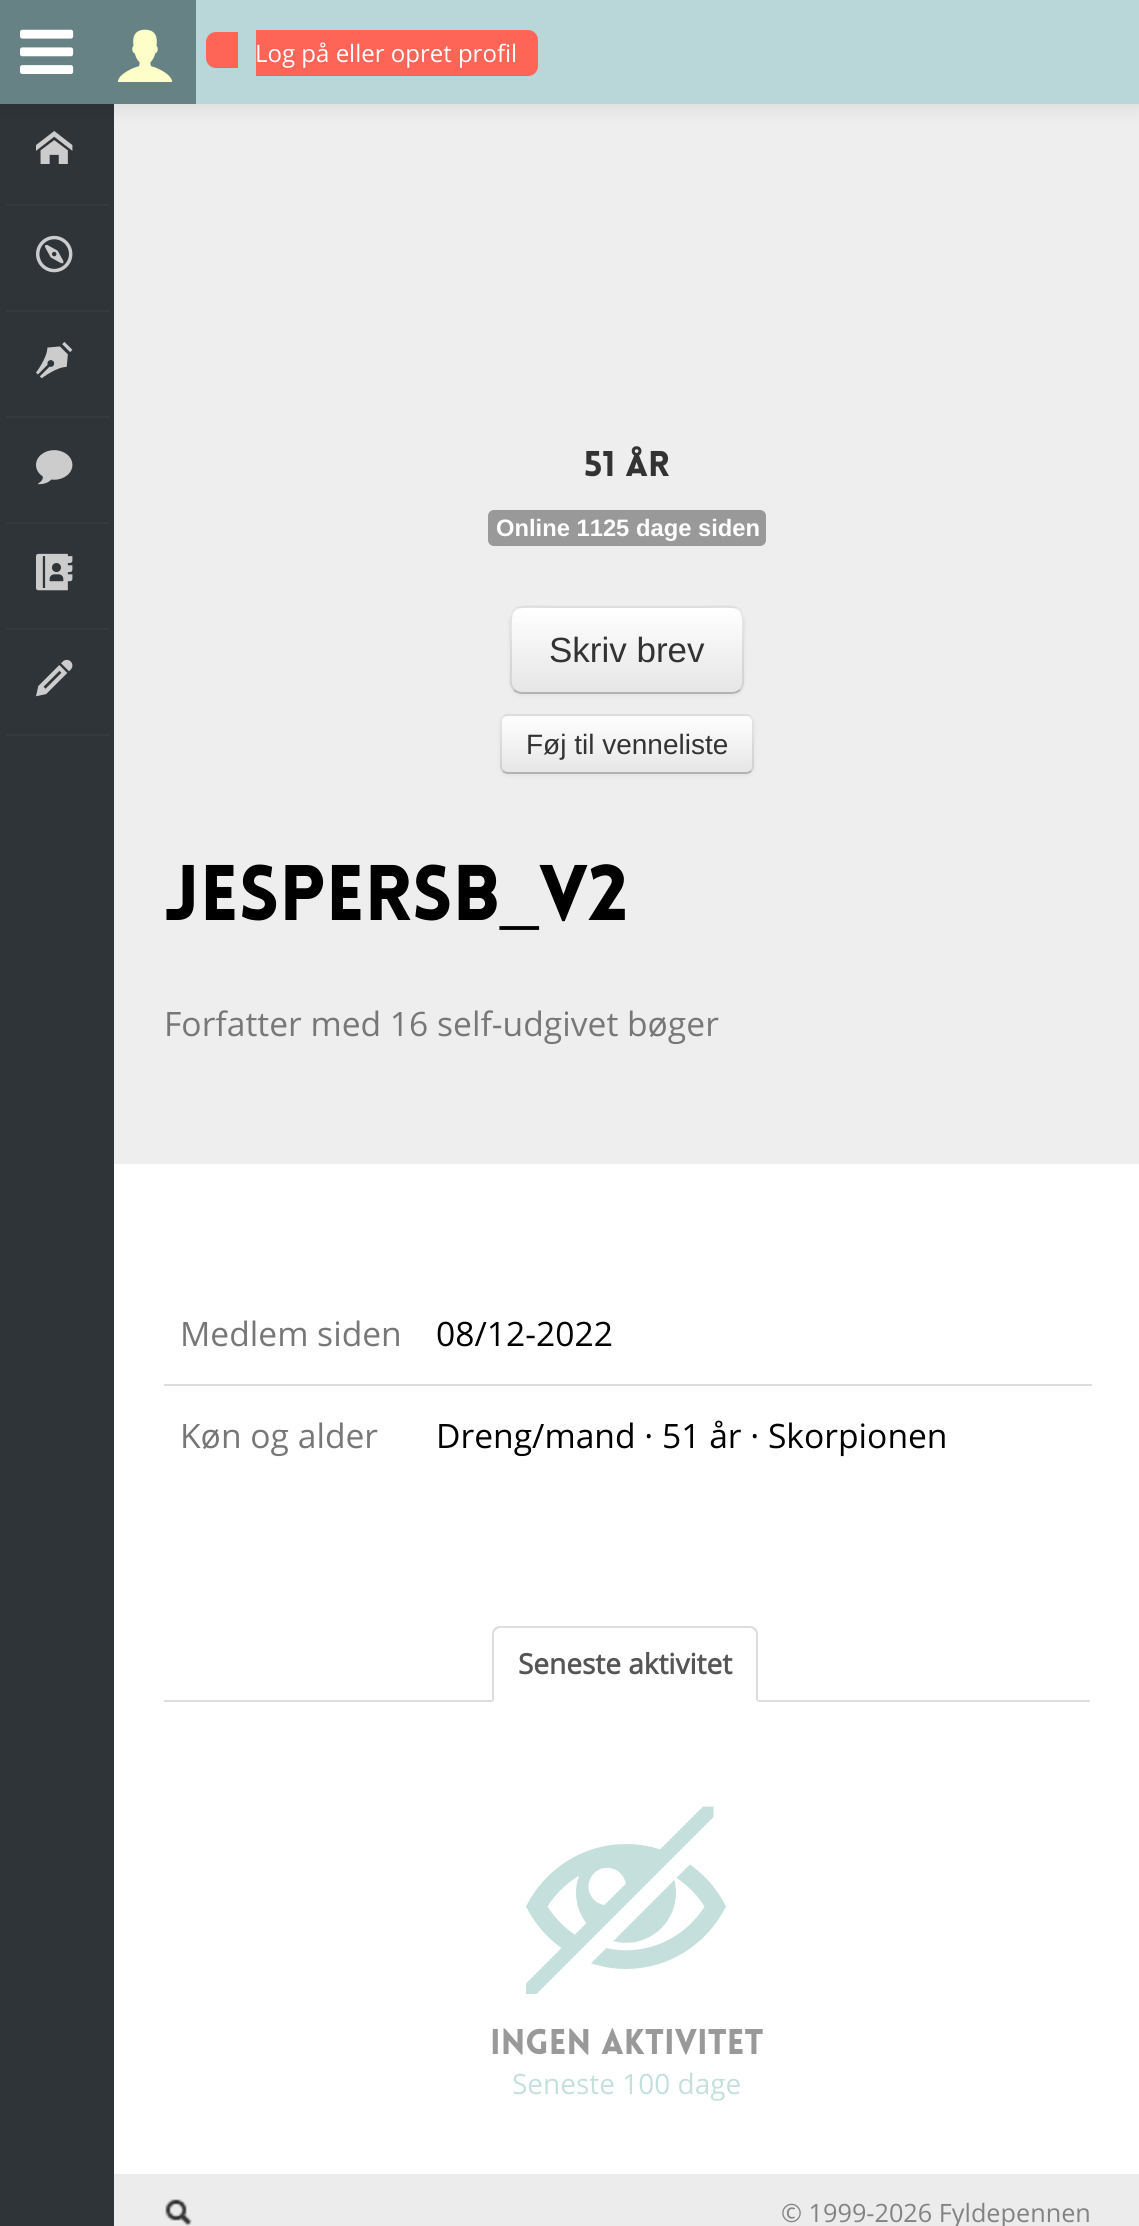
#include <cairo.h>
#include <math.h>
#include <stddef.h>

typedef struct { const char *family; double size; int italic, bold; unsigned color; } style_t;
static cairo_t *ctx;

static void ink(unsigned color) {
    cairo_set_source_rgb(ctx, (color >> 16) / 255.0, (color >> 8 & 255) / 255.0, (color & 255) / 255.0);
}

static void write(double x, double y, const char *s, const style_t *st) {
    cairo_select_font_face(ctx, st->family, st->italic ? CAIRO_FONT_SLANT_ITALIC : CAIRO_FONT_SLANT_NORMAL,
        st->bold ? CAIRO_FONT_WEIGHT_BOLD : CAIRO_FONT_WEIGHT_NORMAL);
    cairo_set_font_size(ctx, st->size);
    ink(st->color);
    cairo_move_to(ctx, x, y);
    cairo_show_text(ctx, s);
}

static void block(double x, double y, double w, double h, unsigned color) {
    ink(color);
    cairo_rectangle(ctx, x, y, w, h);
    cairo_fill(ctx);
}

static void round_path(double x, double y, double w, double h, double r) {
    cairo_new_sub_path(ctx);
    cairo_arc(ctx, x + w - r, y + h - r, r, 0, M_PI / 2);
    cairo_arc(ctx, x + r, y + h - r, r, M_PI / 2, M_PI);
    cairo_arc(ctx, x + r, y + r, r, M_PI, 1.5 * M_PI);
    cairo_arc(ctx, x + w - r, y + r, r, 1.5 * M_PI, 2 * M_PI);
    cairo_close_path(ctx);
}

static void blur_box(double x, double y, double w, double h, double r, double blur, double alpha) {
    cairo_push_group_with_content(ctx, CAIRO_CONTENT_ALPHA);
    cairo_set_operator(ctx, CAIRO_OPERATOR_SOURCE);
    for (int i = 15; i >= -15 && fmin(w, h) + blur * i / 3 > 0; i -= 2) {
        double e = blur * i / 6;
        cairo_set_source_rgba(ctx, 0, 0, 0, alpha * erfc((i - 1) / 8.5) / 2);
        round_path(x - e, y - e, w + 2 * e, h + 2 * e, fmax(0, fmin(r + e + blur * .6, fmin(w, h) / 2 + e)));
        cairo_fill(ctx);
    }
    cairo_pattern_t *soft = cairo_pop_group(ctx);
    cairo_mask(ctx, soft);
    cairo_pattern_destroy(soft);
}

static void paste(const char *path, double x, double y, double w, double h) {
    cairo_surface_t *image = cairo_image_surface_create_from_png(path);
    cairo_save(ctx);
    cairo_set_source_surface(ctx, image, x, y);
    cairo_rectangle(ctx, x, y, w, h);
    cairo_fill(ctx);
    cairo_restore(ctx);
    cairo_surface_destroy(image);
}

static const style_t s1 = {"Open Sans", 24, 0, 0, 0xffffff};
static const style_t s2 = {"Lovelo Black", 35, 0, 0, 0x333333};
static const style_t s3 = {"Liberation Sans", 23.75, 0, 1, 0xffffff};
static const style_t s4 = {"Liberation Sans", 35, 0, 0, 0x333333};
static const style_t s5 = {"Liberation Sans", 28, 0, 0, 0x333333};
static const style_t s6 = {"Lovelo Black", 77, 0, 0, 0x000000};
static const style_t s7 = {"Liberation Serif", 77, 0, 0, 0x000000};
static const style_t s8 = {"Open Sans", 33.6, 0, 0, 0x777777};
static const style_t s9 = {"Open Sans", 33.6, 0, 0, 0x000000};
static const style_t s10 = {"Open Sans", 28, 0, 1, 0x555555};
static const style_t s11 = {"Lovelo Black", 35, 0, 0, 0x999999};
static const style_t s12 = {"Open Sans", 28, 0, 0, 0xc5e0dc};
static const style_t s13 = {"Open Sans", 25.25, 0, 0, 0x838383};

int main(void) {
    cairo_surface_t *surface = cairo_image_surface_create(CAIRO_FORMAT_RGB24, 1139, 2226);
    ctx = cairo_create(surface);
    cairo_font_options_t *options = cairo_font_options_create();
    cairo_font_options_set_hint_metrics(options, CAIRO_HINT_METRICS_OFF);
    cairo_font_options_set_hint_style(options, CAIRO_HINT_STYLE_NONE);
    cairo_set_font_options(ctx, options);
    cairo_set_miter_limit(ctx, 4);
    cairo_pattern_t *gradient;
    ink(0xffffff);
    cairo_paint(ctx);
    block(0, 104, 114, 2122, 0x2f3439);
    paste("pic3.png", 36, 131, 37, 33);
    block(114, 104, 1025, 1060, 0xeeeeee);
    ink(0x000000);
    blur_box(0, 2, 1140, 104, 0, 10, 0.1);
    block(196, 0, 943, 104, 0xb9d7d9);
    block(0, 0, 196, 104, 0x668284);
    paste("pic1.png", 20, 29, 54, 45);
    paste("pic2.png", 117, 29, 56, 53);
    ink(0xfe6557);
    cairo_new_path(ctx);
    cairo_move_to(ctx, 256, 30);
    cairo_line_to(ctx, 528, 30);
    cairo_curve_to(ctx, 533.5, 30, 538, 34.5, 538, 40);
    cairo_line_to(ctx, 538, 66);
    cairo_curve_to(ctx, 538, 71.5, 533.5, 76, 528, 76);
    cairo_line_to(ctx, 256, 76);
    cairo_close_path(ctx);
    cairo_fill(ctx);
    write(255, 62, "Log på eller opret profil", &s1);
    ink(0xfe6557);
    cairo_new_path(ctx);
    cairo_move_to(ctx, 216, 32);
    cairo_line_to(ctx, 238, 32);
    cairo_line_to(ctx, 238, 68);
    cairo_line_to(ctx, 216, 68);
    cairo_curve_to(ctx, 210.5, 68, 206, 63.5, 206, 58);
    cairo_line_to(ctx, 206, 42);
    cairo_curve_to(ctx, 206, 36.5, 210.5, 32, 216, 32);
    cairo_close_path(ctx);
    cairo_fill(ctx);
    block(6, 204, 104, 2, 0x35393e);
    block(6, 310, 104, 2, 0x35393e);
    paste("pic4.png", 36, 235, 37, 38);
    block(6, 416, 104, 2, 0x35393e);
    paste("pic5.png", 36, 342, 37, 37);
    block(6, 522, 104, 2, 0x35393e);
    paste("pic6.png", 36, 450, 37, 35);
    block(6, 628, 104, 2, 0x35393e);
    paste("pic7.png", 36, 553, 37, 38);
    block(6, 734, 104, 2, 0x35393e);
    paste("pic8.png", 36, 659, 37, 38);
    write(584, 476, "51 år", &s2);
    ink(0x999999);
    round_path(488, 510, 278, 36, 6);
    cairo_fill(ctx);
    write(496, 536, "Online 1125 dage siden", &s3);
    ink(0x000000);
    blur_box(510, 608, 234, 88, 12, 2, 0.05);
    ink(0xf5f5f5);
    round_path(510, 606, 234, 88, 12);
    cairo_fill(ctx);
    cairo_save(ctx);
    round_path(510, 606, 234, 88, 12);
    cairo_clip(ctx);
    gradient = cairo_pattern_create_linear(627, 608, 627, 692);
    cairo_pattern_add_color_stop_rgba(gradient, 0, 1, 1, 1, 1);
    cairo_pattern_add_color_stop_rgba(gradient, 1, 0.902, 0.902, 0.902, 1);
    cairo_set_source(ctx, gradient);
    cairo_pattern_destroy(gradient);
    cairo_rectangle(ctx, 510, 608, 234, 84);
    cairo_fill(ctx);
    cairo_restore(ctx);
    cairo_new_path(ctx);
    cairo_move_to(ctx, 740, 690);
    cairo_curve_to(ctx, 737.5, 692, 735, 693, 732, 693);
    cairo_line_to(ctx, 522, 693);
    cairo_curve_to(ctx, 519, 693, 516.5, 692, 514, 690);
    ink(0xb3b3b3);
    cairo_stroke(ctx);
    cairo_new_path(ctx);
    cairo_move_to(ctx, 514, 690);
    cairo_curve_to(ctx, 509.5, 685, 511, 677, 511, 671.5);
    cairo_line_to(ctx, 511, 650);
    cairo_curve_to(ctx, 511, 600.5, 504.5, 607, 557, 607);
    cairo_line_to(ctx, 697, 607);
    cairo_curve_to(ctx, 749.5, 607, 743, 600.5, 743, 650);
    cairo_line_to(ctx, 743, 671.5);
    cairo_curve_to(ctx, 743, 677, 744.5, 685, 740, 690);
    cairo_set_source_rgba(ctx, 0, 0, 0, 0.1);
    cairo_stroke(ctx);
    write(549, 662, "Skriv brev", &s4);
    ink(0x000000);
    blur_box(500, 716, 254, 60, 8, 2, 0.05);
    ink(0xf5f5f5);
    round_path(500, 714, 254, 60, 8);
    cairo_fill(ctx);
    cairo_save(ctx);
    round_path(500, 714, 254, 60, 8);
    cairo_clip(ctx);
    gradient = cairo_pattern_create_linear(627, 716, 627, 772);
    cairo_pattern_add_color_stop_rgba(gradient, 0, 1, 1, 1, 1);
    cairo_pattern_add_color_stop_rgba(gradient, 1, 0.902, 0.902, 0.902, 1);
    cairo_set_source(ctx, gradient);
    cairo_pattern_destroy(gradient);
    cairo_rectangle(ctx, 500, 716, 254, 56);
    cairo_fill(ctx);
    cairo_restore(ctx);
    cairo_new_path(ctx);
    cairo_move_to(ctx, 751, 771);
    cairo_curve_to(ctx, 749.5, 772.5, 748, 773, 746, 773);
    cairo_line_to(ctx, 508, 773);
    cairo_curve_to(ctx, 506, 773, 504.5, 772.5, 503, 771);
    ink(0xb3b3b3);
    cairo_stroke(ctx);
    cairo_new_path(ctx);
    cairo_move_to(ctx, 503, 771);
    cairo_curve_to(ctx, 501.5, 769.5, 501, 768, 501, 766);
    cairo_line_to(ctx, 501, 722);
    cairo_curve_to(ctx, 501, 720, 501.5, 718.5, 503, 717);
    cairo_curve_to(ctx, 504.5, 715.5, 506, 715, 508, 715);
    cairo_line_to(ctx, 746, 715);
    cairo_curve_to(ctx, 748, 715, 749.5, 715.5, 751, 717);
    cairo_curve_to(ctx, 752.5, 718.5, 753, 720, 753, 722);
    cairo_line_to(ctx, 753, 766);
    cairo_curve_to(ctx, 753, 768, 752.5, 769.5, 751, 771);
    cairo_set_source_rgba(ctx, 0, 0, 0, 0.1);
    cairo_stroke(ctx);
    write(526, 754, "Føj til venneliste", &s5);
    write(164, 920, "JesperSB", &s6);
    write(539, 920, "v2", &s6);
    write(500, 920, "_", &s7);
    write(164, 1036, "Forfatter med 16 self-udgivet bøger", &s8);
    write(180, 1346, "Medlem siden", &s8);
    write(436, 1346, "08/12-2022", &s9);
    write(180, 1448, "Køn og alder", &s8);
    block(164, 1384, 928, 2, 0xdddddd);
    write(436, 1448, "Dreng/mand · 51 år · Skorpionen", &s9);
    block(164, 1700, 926, 2, 0xdddddd);
    ink(0xffffff);
    cairo_new_path(ctx);
    cairo_move_to(ctx, 500, 1626);
    cairo_line_to(ctx, 750, 1626);
    cairo_curve_to(ctx, 754.5, 1626, 758, 1629.5, 758, 1634);
    cairo_line_to(ctx, 758, 1702);
    cairo_line_to(ctx, 492, 1702);
    cairo_line_to(ctx, 492, 1634);
    cairo_curve_to(ctx, 492, 1629.5, 495.5, 1626, 500, 1626);
    cairo_close_path(ctx);
    cairo_fill(ctx);
    ink(0xdddddd);
    cairo_new_path(ctx);
    cairo_move_to(ctx, 500, 1626);
    cairo_curve_to(ctx, 498, 1626, 496, 1627, 494, 1628);
    cairo_line_to(ctx, 496, 1630);
    cairo_curve_to(ctx, 497, 1629, 498, 1628, 500, 1628);
    cairo_line_to(ctx, 750, 1628);
    cairo_curve_to(ctx, 752, 1628, 753, 1629, 754, 1630);
    cairo_line_to(ctx, 756, 1628);
    cairo_curve_to(ctx, 754, 1627, 752, 1626, 750, 1626);
    cairo_close_path(ctx);
    cairo_fill(ctx);
    cairo_new_path(ctx);
    cairo_move_to(ctx, 758, 1702);
    cairo_line_to(ctx, 758, 1634);
    cairo_curve_to(ctx, 758, 1632, 757, 1630, 756, 1628);
    cairo_line_to(ctx, 754, 1630);
    cairo_curve_to(ctx, 755, 1631, 756, 1632, 756, 1634);
    cairo_line_to(ctx, 756, 1700);
    cairo_close_path(ctx);
    cairo_fill(ctx);
    cairo_new_path(ctx);
    cairo_move_to(ctx, 492, 1702);
    cairo_line_to(ctx, 494, 1700);
    cairo_line_to(ctx, 494, 1634);
    cairo_curve_to(ctx, 494, 1632, 495, 1631, 496, 1630);
    cairo_line_to(ctx, 494, 1628);
    cairo_curve_to(ctx, 493, 1630, 492, 1632, 492, 1634);
    cairo_close_path(ctx);
    cairo_fill(ctx);
    write(518, 1674, "Seneste aktivitet", &s10);
    paste("pic9.png", 526, 1806, 200, 188);
    write(490, 2054, "Ingen aktivitet", &s11);
    write(512, 2094, "Seneste 100 dage", &s12);
    block(114, 2174, 1025, 52, 0xececec);
    paste("pic10.png", 165, 2199, 27, 27);
    write(781, 2222, "© 1999-2026 Fyldepennen", &s13);
    cairo_surface_write_to_png(surface, "screenshot.png");
    cairo_font_options_destroy(options);
    cairo_destroy(ctx);
    cairo_surface_destroy(surface);
    return 0;
}
